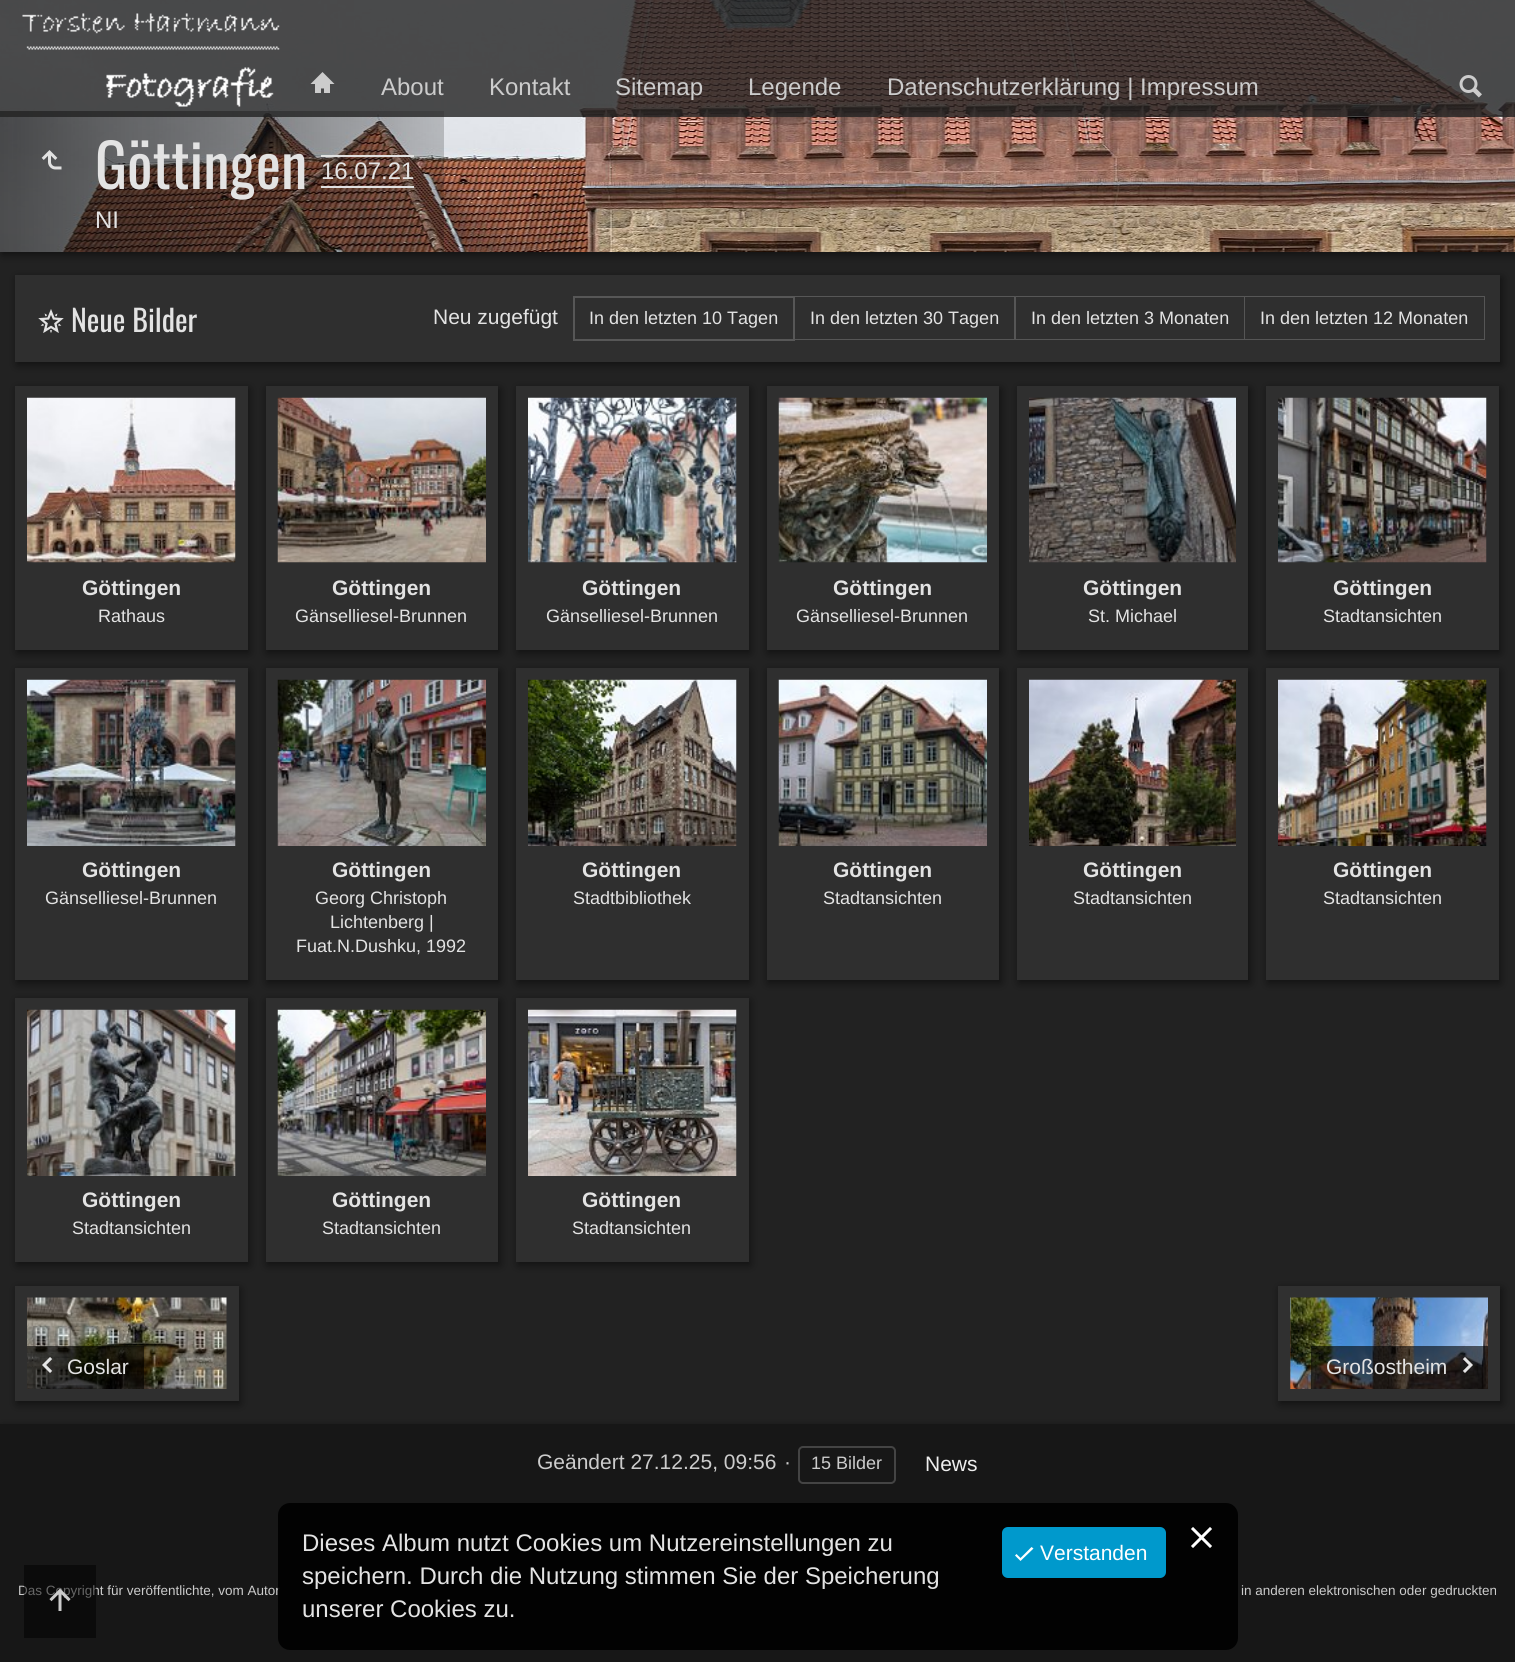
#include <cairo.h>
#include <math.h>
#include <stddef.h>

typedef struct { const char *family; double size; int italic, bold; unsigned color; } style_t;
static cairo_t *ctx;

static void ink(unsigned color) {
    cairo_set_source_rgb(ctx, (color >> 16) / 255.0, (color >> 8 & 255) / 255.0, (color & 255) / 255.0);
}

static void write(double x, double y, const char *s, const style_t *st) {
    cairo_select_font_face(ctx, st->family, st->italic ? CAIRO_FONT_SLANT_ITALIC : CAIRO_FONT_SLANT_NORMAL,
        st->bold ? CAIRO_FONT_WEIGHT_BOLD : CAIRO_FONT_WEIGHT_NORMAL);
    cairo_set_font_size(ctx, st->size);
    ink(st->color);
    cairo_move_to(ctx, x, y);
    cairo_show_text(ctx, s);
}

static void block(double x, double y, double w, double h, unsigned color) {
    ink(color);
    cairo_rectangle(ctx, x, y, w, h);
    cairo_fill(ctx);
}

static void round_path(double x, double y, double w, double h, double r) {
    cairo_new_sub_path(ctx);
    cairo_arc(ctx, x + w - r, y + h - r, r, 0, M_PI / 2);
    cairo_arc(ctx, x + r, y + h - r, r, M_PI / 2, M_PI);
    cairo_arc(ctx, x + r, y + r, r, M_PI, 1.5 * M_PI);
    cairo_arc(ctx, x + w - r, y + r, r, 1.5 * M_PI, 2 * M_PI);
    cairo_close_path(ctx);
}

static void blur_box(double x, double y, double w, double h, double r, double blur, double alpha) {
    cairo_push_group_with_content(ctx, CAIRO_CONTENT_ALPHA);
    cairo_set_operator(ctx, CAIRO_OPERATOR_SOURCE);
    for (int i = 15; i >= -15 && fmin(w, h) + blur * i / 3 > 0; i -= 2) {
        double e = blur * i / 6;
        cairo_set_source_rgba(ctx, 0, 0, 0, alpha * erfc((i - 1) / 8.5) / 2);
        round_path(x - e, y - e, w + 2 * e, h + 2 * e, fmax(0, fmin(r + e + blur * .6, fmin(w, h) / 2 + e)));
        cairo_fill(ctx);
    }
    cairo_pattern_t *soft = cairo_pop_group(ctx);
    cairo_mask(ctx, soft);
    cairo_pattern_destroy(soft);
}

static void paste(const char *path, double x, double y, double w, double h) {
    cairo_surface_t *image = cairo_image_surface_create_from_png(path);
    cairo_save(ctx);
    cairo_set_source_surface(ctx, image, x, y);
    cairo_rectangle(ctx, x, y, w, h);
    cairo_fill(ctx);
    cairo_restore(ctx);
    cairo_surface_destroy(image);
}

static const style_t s1 = {"Liberation Sans", 24, 0, 0, 0xcccccc};
static const style_t s2 = {"Oswald", 60, 0, 0, 0xe3e3e3};
static const style_t s3 = {"Liberation Sans", 24, 0, 0, 0xe3e3e3};
static const style_t s4 = {"Oswald", 30, 0, 0, 0xe3e3e3};
static const style_t s5 = {"Liberation Sans", 21, 0, 0, 0xe3e3e3};
static const style_t s6 = {"Liberation Sans", 18, 0, 0, 0xe3e3e3};
static const style_t s7 = {"Liberation Sans", 21, 0, 1, 0xe3e3e3};
static const style_t s8 = {"Liberation Sans", 21, 0, 0, 0xcccccc};
static const style_t s9 = {"Liberation Sans", 18, 0, 0, 0xcccccc};
static const style_t s10 = {"Liberation Sans", 21, 0, 0, 0xeeeeee};
static const style_t s11 = {"Liberation Sans", 13.5, 0, 0, 0xcccccc};
static const style_t s12 = {"Liberation Sans", 21, 0, 0, 0xffffff};

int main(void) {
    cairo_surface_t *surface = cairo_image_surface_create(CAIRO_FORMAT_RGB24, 1515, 1662);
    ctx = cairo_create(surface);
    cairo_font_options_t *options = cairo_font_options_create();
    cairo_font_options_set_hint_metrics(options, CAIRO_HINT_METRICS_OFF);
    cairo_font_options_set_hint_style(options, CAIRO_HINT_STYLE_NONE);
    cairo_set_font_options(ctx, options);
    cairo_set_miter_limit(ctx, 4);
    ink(0x222222);
    cairo_paint(ctx);
    ink(0x000000);
    blur_box(2, -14, 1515, 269, 0, 4.5, 0.5);
    paste("pic4.png", 0, 0, 1515, 252);
    cairo_set_source_rgba(ctx, 0.133, 0.133, 0.133, 0.8);
    cairo_rectangle(ctx, 0, 0, 1515, 117);
    cairo_fill(ctx);
    paste("pic1.png", 22, 13, 258, 94);
    paste("pic2.png", 310, 72, 25, 21);
    write(381, 95, "About", &s1);
    write(489, 95, "Kontakt", &s1);
    write(615, 95, "Sitemap", &s1);
    write(748, 95, "Legende", &s1);
    write(887, 95, "Datenschutzerklärung | Impressum", &s1);
    paste("pic3.png", 1459, 75, 23, 23);
    paste("pic5.png", 41, 150, 21, 20);
    write(95, 189, "Göttingen", &s2);
    block(321, 155, 93, 2, 0xe1e1e1);
    block(321, 186, 93, 2, 0xe1e1e1);
    write(321, 179, "16.07.21", &s3);
    write(95, 228, "NI", &s3);
    cairo_save(ctx);
    cairo_set_fill_rule(ctx, CAIRO_FILL_RULE_EVEN_ODD);
    cairo_new_path(ctx);
    cairo_move_to(ctx, 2, 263);
    cairo_line_to(ctx, 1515, 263);
    cairo_line_to(ctx, 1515, 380);
    cairo_line_to(ctx, 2, 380);
    cairo_close_path(ctx);
    cairo_move_to(ctx, 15, 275);
    cairo_line_to(ctx, 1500, 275);
    cairo_line_to(ctx, 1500, 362);
    cairo_line_to(ctx, 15, 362);
    cairo_close_path(ctx);
    cairo_clip(ctx);
    ink(0x000000);
    blur_box(17, 278, 1485, 87, 0, 4.5, 0.5);
    cairo_restore(ctx);
    cairo_set_source_rgba(ctx, 0.267, 0.267, 0.267, 0.4);
    cairo_rectangle(ctx, 15, 275, 1485, 87);
    cairo_fill(ctx);
    paste("pic6.png", 38, 309, 26, 24);
    write(71, 332, "Neue Bilder", &s4);
    write(433, 324, "Neu zugefügt", &s5);
    cairo_rectangle(ctx, 574, 297, 220, 43);
    ink(0x575757);
    cairo_stroke(ctx);
    write(589, 324, "In den letzten 10 Tagen", &s6);
    ink(0x575757);
    cairo_new_path(ctx);
    cairo_move_to(ctx, 795, 296);
    cairo_line_to(ctx, 1016, 296);
    cairo_line_to(ctx, 1014, 297);
    cairo_line_to(ctx, 795, 297);
    cairo_close_path(ctx);
    cairo_fill(ctx);
    cairo_set_source_rgba(ctx, 0.8, 0.8, 0.8, 0.25);
    cairo_new_path(ctx);
    cairo_move_to(ctx, 1016, 296);
    cairo_line_to(ctx, 1016, 340);
    cairo_line_to(ctx, 1014, 339);
    cairo_line_to(ctx, 1014, 297);
    cairo_close_path(ctx);
    cairo_fill(ctx);
    cairo_new_path(ctx);
    cairo_move_to(ctx, 1016, 340);
    cairo_line_to(ctx, 795, 340);
    cairo_line_to(ctx, 795, 339);
    cairo_line_to(ctx, 1014, 339);
    cairo_close_path(ctx);
    cairo_fill(ctx);
    write(810, 324, "In den letzten 30 Tagen", &s6);
    ink(0x575757);
    cairo_new_path(ctx);
    cairo_move_to(ctx, 1016, 296);
    cairo_line_to(ctx, 1245, 296);
    cairo_line_to(ctx, 1244, 297);
    cairo_line_to(ctx, 1016, 297);
    cairo_close_path(ctx);
    cairo_fill(ctx);
    cairo_set_source_rgba(ctx, 0.8, 0.8, 0.8, 0.25);
    cairo_new_path(ctx);
    cairo_move_to(ctx, 1245, 296);
    cairo_line_to(ctx, 1245, 340);
    cairo_line_to(ctx, 1244, 339);
    cairo_line_to(ctx, 1244, 297);
    cairo_close_path(ctx);
    cairo_fill(ctx);
    cairo_new_path(ctx);
    cairo_move_to(ctx, 1245, 340);
    cairo_line_to(ctx, 1016, 340);
    cairo_line_to(ctx, 1016, 339);
    cairo_line_to(ctx, 1244, 339);
    cairo_close_path(ctx);
    cairo_fill(ctx);
    write(1031, 324, "In den letzten 3 Monaten", &s6);
    ink(0x575757);
    cairo_new_path(ctx);
    cairo_move_to(ctx, 1245, 296);
    cairo_line_to(ctx, 1485, 296);
    cairo_line_to(ctx, 1484, 297);
    cairo_line_to(ctx, 1245, 297);
    cairo_close_path(ctx);
    cairo_fill(ctx);
    cairo_set_source_rgba(ctx, 0.8, 0.8, 0.8, 0.25);
    cairo_new_path(ctx);
    cairo_move_to(ctx, 1485, 296);
    cairo_line_to(ctx, 1485, 340);
    cairo_line_to(ctx, 1484, 339);
    cairo_line_to(ctx, 1484, 297);
    cairo_close_path(ctx);
    cairo_fill(ctx);
    cairo_new_path(ctx);
    cairo_move_to(ctx, 1485, 340);
    cairo_line_to(ctx, 1245, 340);
    cairo_line_to(ctx, 1245, 339);
    cairo_line_to(ctx, 1484, 339);
    cairo_close_path(ctx);
    cairo_fill(ctx);
    write(1260, 324, "In den letzten 12 Monaten", &s6);
    cairo_save(ctx);
    cairo_set_fill_rule(ctx, CAIRO_FILL_RULE_EVEN_ODD);
    cairo_new_path(ctx);
    cairo_move_to(ctx, 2, 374);
    cairo_line_to(ctx, 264, 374);
    cairo_line_to(ctx, 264, 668);
    cairo_line_to(ctx, 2, 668);
    cairo_close_path(ctx);
    cairo_move_to(ctx, 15, 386);
    cairo_line_to(ctx, 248, 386);
    cairo_line_to(ctx, 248, 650);
    cairo_line_to(ctx, 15, 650);
    cairo_close_path(ctx);
    cairo_clip(ctx);
    ink(0x000000);
    blur_box(17, 389, 232, 264, 0, 4.5, 0.5);
    cairo_restore(ctx);
    cairo_set_source_rgba(ctx, 0.267, 0.267, 0.267, 0.4);
    cairo_rectangle(ctx, 15, 386, 233, 264);
    cairo_fill(ctx);
    paste("pic7.png", 27, 397, 209, 166);
    write(82, 595, "Göttingen", &s7);
    write(98, 622, "Rathaus", &s6);
    cairo_save(ctx);
    cairo_set_fill_rule(ctx, CAIRO_FILL_RULE_EVEN_ODD);
    cairo_new_path(ctx);
    cairo_move_to(ctx, 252, 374);
    cairo_line_to(ctx, 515, 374);
    cairo_line_to(ctx, 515, 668);
    cairo_line_to(ctx, 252, 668);
    cairo_close_path(ctx);
    cairo_move_to(ctx, 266, 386);
    cairo_line_to(ctx, 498, 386);
    cairo_line_to(ctx, 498, 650);
    cairo_line_to(ctx, 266, 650);
    cairo_close_path(ctx);
    cairo_clip(ctx);
    ink(0x000000);
    blur_box(267, 389, 233, 264, 0, 4.5, 0.5);
    cairo_restore(ctx);
    cairo_set_source_rgba(ctx, 0.267, 0.267, 0.267, 0.4);
    cairo_rectangle(ctx, 266, 386, 232, 264);
    cairo_fill(ctx);
    paste("pic8.png", 277, 397, 209, 166);
    write(332, 595, "Göttingen", &s7);
    write(295, 622, "Gänselliesel-Brunnen", &s6);
    cairo_save(ctx);
    cairo_set_fill_rule(ctx, CAIRO_FILL_RULE_EVEN_ODD);
    cairo_new_path(ctx);
    cairo_move_to(ctx, 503, 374);
    cairo_line_to(ctx, 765, 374);
    cairo_line_to(ctx, 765, 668);
    cairo_line_to(ctx, 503, 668);
    cairo_close_path(ctx);
    cairo_move_to(ctx, 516, 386);
    cairo_line_to(ctx, 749, 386);
    cairo_line_to(ctx, 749, 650);
    cairo_line_to(ctx, 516, 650);
    cairo_close_path(ctx);
    cairo_clip(ctx);
    ink(0x000000);
    blur_box(518, 389, 232, 264, 0, 4.5, 0.5);
    cairo_restore(ctx);
    cairo_set_source_rgba(ctx, 0.267, 0.267, 0.267, 0.4);
    cairo_rectangle(ctx, 516, 386, 233, 264);
    cairo_fill(ctx);
    paste("pic9.png", 528, 397, 209, 166);
    write(582, 595, "Göttingen", &s7);
    write(546, 622, "Gänselliesel-Brunnen", &s6);
    cairo_save(ctx);
    cairo_set_fill_rule(ctx, CAIRO_FILL_RULE_EVEN_ODD);
    cairo_new_path(ctx);
    cairo_move_to(ctx, 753, 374);
    cairo_line_to(ctx, 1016, 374);
    cairo_line_to(ctx, 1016, 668);
    cairo_line_to(ctx, 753, 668);
    cairo_close_path(ctx);
    cairo_move_to(ctx, 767, 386);
    cairo_line_to(ctx, 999, 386);
    cairo_line_to(ctx, 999, 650);
    cairo_line_to(ctx, 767, 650);
    cairo_close_path(ctx);
    cairo_clip(ctx);
    ink(0x000000);
    blur_box(768, 389, 233, 264, 0, 4.5, 0.5);
    cairo_restore(ctx);
    cairo_set_source_rgba(ctx, 0.267, 0.267, 0.267, 0.4);
    cairo_rectangle(ctx, 767, 386, 232, 264);
    cairo_fill(ctx);
    paste("pic10.png", 778, 397, 209, 166);
    write(833, 595, "Göttingen", &s7);
    write(796, 622, "Gänselliesel-Brunnen", &s6);
    cairo_save(ctx);
    cairo_set_fill_rule(ctx, CAIRO_FILL_RULE_EVEN_ODD);
    cairo_new_path(ctx);
    cairo_move_to(ctx, 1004, 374);
    cairo_line_to(ctx, 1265, 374);
    cairo_line_to(ctx, 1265, 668);
    cairo_line_to(ctx, 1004, 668);
    cairo_close_path(ctx);
    cairo_move_to(ctx, 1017, 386);
    cairo_line_to(ctx, 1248, 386);
    cairo_line_to(ctx, 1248, 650);
    cairo_line_to(ctx, 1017, 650);
    cairo_close_path(ctx);
    cairo_clip(ctx);
    ink(0x000000);
    blur_box(1019, 389, 231, 264, 0, 4.5, 0.5);
    cairo_restore(ctx);
    cairo_set_source_rgba(ctx, 0.267, 0.267, 0.267, 0.4);
    cairo_rectangle(ctx, 1017, 386, 231, 264);
    cairo_fill(ctx);
    paste("pic11.png", 1029, 397, 207, 166);
    write(1083, 595, "Göttingen", &s7);
    write(1088, 622, "St. Michael", &s6);
    cairo_save(ctx);
    cairo_set_fill_rule(ctx, CAIRO_FILL_RULE_EVEN_ODD);
    cairo_new_path(ctx);
    cairo_move_to(ctx, 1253, 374);
    cairo_line_to(ctx, 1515, 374);
    cairo_line_to(ctx, 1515, 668);
    cairo_line_to(ctx, 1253, 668);
    cairo_close_path(ctx);
    cairo_move_to(ctx, 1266, 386);
    cairo_line_to(ctx, 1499, 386);
    cairo_line_to(ctx, 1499, 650);
    cairo_line_to(ctx, 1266, 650);
    cairo_close_path(ctx);
    cairo_clip(ctx);
    ink(0x000000);
    blur_box(1268, 389, 232, 264, 0, 4.5, 0.5);
    cairo_restore(ctx);
    cairo_set_source_rgba(ctx, 0.267, 0.267, 0.267, 0.4);
    cairo_rectangle(ctx, 1266, 386, 233, 264);
    cairo_fill(ctx);
    paste("pic12.png", 1278, 397, 209, 166);
    write(1333, 595, "Göttingen", &s7);
    write(1323, 622, "Stadtansichten", &s6);
    cairo_save(ctx);
    cairo_set_fill_rule(ctx, CAIRO_FILL_RULE_EVEN_ODD);
    cairo_new_path(ctx);
    cairo_move_to(ctx, 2, 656);
    cairo_line_to(ctx, 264, 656);
    cairo_line_to(ctx, 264, 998);
    cairo_line_to(ctx, 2, 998);
    cairo_close_path(ctx);
    cairo_move_to(ctx, 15, 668);
    cairo_line_to(ctx, 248, 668);
    cairo_line_to(ctx, 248, 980);
    cairo_line_to(ctx, 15, 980);
    cairo_close_path(ctx);
    cairo_clip(ctx);
    ink(0x000000);
    blur_box(17, 671, 232, 312, 0, 4.5, 0.5);
    cairo_restore(ctx);
    cairo_set_source_rgba(ctx, 0.267, 0.267, 0.267, 0.4);
    cairo_rectangle(ctx, 15, 668, 233, 312);
    cairo_fill(ctx);
    paste("pic13.png", 27, 679, 209, 167);
    write(82, 877, "Göttingen", &s7);
    write(45, 904, "Gänselliesel-Brunnen", &s6);
    cairo_save(ctx);
    cairo_set_fill_rule(ctx, CAIRO_FILL_RULE_EVEN_ODD);
    cairo_new_path(ctx);
    cairo_move_to(ctx, 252, 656);
    cairo_line_to(ctx, 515, 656);
    cairo_line_to(ctx, 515, 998);
    cairo_line_to(ctx, 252, 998);
    cairo_close_path(ctx);
    cairo_move_to(ctx, 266, 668);
    cairo_line_to(ctx, 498, 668);
    cairo_line_to(ctx, 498, 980);
    cairo_line_to(ctx, 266, 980);
    cairo_close_path(ctx);
    cairo_clip(ctx);
    ink(0x000000);
    blur_box(267, 671, 233, 312, 0, 4.5, 0.5);
    cairo_restore(ctx);
    cairo_set_source_rgba(ctx, 0.267, 0.267, 0.267, 0.4);
    cairo_rectangle(ctx, 266, 668, 232, 312);
    cairo_fill(ctx);
    paste("pic14.png", 277, 679, 209, 167);
    write(332, 877, "Göttingen", &s7);
    write(315, 904, "Georg Christoph", &s6);
    write(330, 928, "Lichtenberg |", &s6);
    write(296, 952, "Fuat.N.Dushku, 1992", &s6);
    cairo_save(ctx);
    cairo_set_fill_rule(ctx, CAIRO_FILL_RULE_EVEN_ODD);
    cairo_new_path(ctx);
    cairo_move_to(ctx, 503, 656);
    cairo_line_to(ctx, 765, 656);
    cairo_line_to(ctx, 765, 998);
    cairo_line_to(ctx, 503, 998);
    cairo_close_path(ctx);
    cairo_move_to(ctx, 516, 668);
    cairo_line_to(ctx, 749, 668);
    cairo_line_to(ctx, 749, 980);
    cairo_line_to(ctx, 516, 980);
    cairo_close_path(ctx);
    cairo_clip(ctx);
    ink(0x000000);
    blur_box(518, 671, 232, 312, 0, 4.5, 0.5);
    cairo_restore(ctx);
    cairo_set_source_rgba(ctx, 0.267, 0.267, 0.267, 0.4);
    cairo_rectangle(ctx, 516, 668, 233, 312);
    cairo_fill(ctx);
    paste("pic15.png", 528, 679, 209, 167);
    write(582, 877, "Göttingen", &s7);
    write(573, 904, "Stadtbibliothek", &s6);
    cairo_save(ctx);
    cairo_set_fill_rule(ctx, CAIRO_FILL_RULE_EVEN_ODD);
    cairo_new_path(ctx);
    cairo_move_to(ctx, 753, 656);
    cairo_line_to(ctx, 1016, 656);
    cairo_line_to(ctx, 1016, 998);
    cairo_line_to(ctx, 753, 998);
    cairo_close_path(ctx);
    cairo_move_to(ctx, 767, 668);
    cairo_line_to(ctx, 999, 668);
    cairo_line_to(ctx, 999, 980);
    cairo_line_to(ctx, 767, 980);
    cairo_close_path(ctx);
    cairo_clip(ctx);
    ink(0x000000);
    blur_box(768, 671, 233, 312, 0, 4.5, 0.5);
    cairo_restore(ctx);
    cairo_set_source_rgba(ctx, 0.267, 0.267, 0.267, 0.4);
    cairo_rectangle(ctx, 767, 668, 232, 312);
    cairo_fill(ctx);
    paste("pic16.png", 778, 679, 209, 167);
    write(833, 877, "Göttingen", &s7);
    write(823, 904, "Stadtansichten", &s6);
    cairo_save(ctx);
    cairo_set_fill_rule(ctx, CAIRO_FILL_RULE_EVEN_ODD);
    cairo_new_path(ctx);
    cairo_move_to(ctx, 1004, 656);
    cairo_line_to(ctx, 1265, 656);
    cairo_line_to(ctx, 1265, 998);
    cairo_line_to(ctx, 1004, 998);
    cairo_close_path(ctx);
    cairo_move_to(ctx, 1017, 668);
    cairo_line_to(ctx, 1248, 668);
    cairo_line_to(ctx, 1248, 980);
    cairo_line_to(ctx, 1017, 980);
    cairo_close_path(ctx);
    cairo_clip(ctx);
    ink(0x000000);
    blur_box(1019, 671, 231, 312, 0, 4.5, 0.5);
    cairo_restore(ctx);
    cairo_set_source_rgba(ctx, 0.267, 0.267, 0.267, 0.4);
    cairo_rectangle(ctx, 1017, 668, 231, 312);
    cairo_fill(ctx);
    paste("pic17.png", 1029, 679, 207, 167);
    write(1083, 877, "Göttingen", &s7);
    write(1073, 904, "Stadtansichten", &s6);
    cairo_save(ctx);
    cairo_set_fill_rule(ctx, CAIRO_FILL_RULE_EVEN_ODD);
    cairo_new_path(ctx);
    cairo_move_to(ctx, 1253, 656);
    cairo_line_to(ctx, 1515, 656);
    cairo_line_to(ctx, 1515, 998);
    cairo_line_to(ctx, 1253, 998);
    cairo_close_path(ctx);
    cairo_move_to(ctx, 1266, 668);
    cairo_line_to(ctx, 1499, 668);
    cairo_line_to(ctx, 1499, 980);
    cairo_line_to(ctx, 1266, 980);
    cairo_close_path(ctx);
    cairo_clip(ctx);
    ink(0x000000);
    blur_box(1268, 671, 232, 312, 0, 4.5, 0.5);
    cairo_restore(ctx);
    cairo_set_source_rgba(ctx, 0.267, 0.267, 0.267, 0.4);
    cairo_rectangle(ctx, 1266, 668, 233, 312);
    cairo_fill(ctx);
    paste("pic18.png", 1278, 679, 209, 167);
    write(1333, 877, "Göttingen", &s7);
    write(1323, 904, "Stadtansichten", &s6);
    cairo_save(ctx);
    cairo_set_fill_rule(ctx, CAIRO_FILL_RULE_EVEN_ODD);
    cairo_new_path(ctx);
    cairo_move_to(ctx, 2, 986);
    cairo_line_to(ctx, 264, 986);
    cairo_line_to(ctx, 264, 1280);
    cairo_line_to(ctx, 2, 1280);
    cairo_close_path(ctx);
    cairo_move_to(ctx, 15, 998);
    cairo_line_to(ctx, 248, 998);
    cairo_line_to(ctx, 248, 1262);
    cairo_line_to(ctx, 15, 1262);
    cairo_close_path(ctx);
    cairo_clip(ctx);
    ink(0x000000);
    blur_box(17, 1001, 232, 264, 0, 4.5, 0.5);
    cairo_restore(ctx);
    cairo_set_source_rgba(ctx, 0.267, 0.267, 0.267, 0.4);
    cairo_rectangle(ctx, 15, 998, 233, 264);
    cairo_fill(ctx);
    paste("pic19.png", 27, 1009, 209, 167);
    write(82, 1207, "Göttingen", &s7);
    write(72, 1234, "Stadtansichten", &s6);
    cairo_save(ctx);
    cairo_set_fill_rule(ctx, CAIRO_FILL_RULE_EVEN_ODD);
    cairo_new_path(ctx);
    cairo_move_to(ctx, 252, 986);
    cairo_line_to(ctx, 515, 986);
    cairo_line_to(ctx, 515, 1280);
    cairo_line_to(ctx, 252, 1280);
    cairo_close_path(ctx);
    cairo_move_to(ctx, 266, 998);
    cairo_line_to(ctx, 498, 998);
    cairo_line_to(ctx, 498, 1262);
    cairo_line_to(ctx, 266, 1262);
    cairo_close_path(ctx);
    cairo_clip(ctx);
    ink(0x000000);
    blur_box(267, 1001, 233, 264, 0, 4.5, 0.5);
    cairo_restore(ctx);
    cairo_set_source_rgba(ctx, 0.267, 0.267, 0.267, 0.4);
    cairo_rectangle(ctx, 266, 998, 232, 264);
    cairo_fill(ctx);
    paste("pic20.png", 277, 1009, 209, 167);
    write(332, 1207, "Göttingen", &s7);
    write(322, 1234, "Stadtansichten", &s6);
    cairo_save(ctx);
    cairo_set_fill_rule(ctx, CAIRO_FILL_RULE_EVEN_ODD);
    cairo_new_path(ctx);
    cairo_move_to(ctx, 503, 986);
    cairo_line_to(ctx, 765, 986);
    cairo_line_to(ctx, 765, 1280);
    cairo_line_to(ctx, 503, 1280);
    cairo_close_path(ctx);
    cairo_move_to(ctx, 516, 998);
    cairo_line_to(ctx, 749, 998);
    cairo_line_to(ctx, 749, 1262);
    cairo_line_to(ctx, 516, 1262);
    cairo_close_path(ctx);
    cairo_clip(ctx);
    ink(0x000000);
    blur_box(518, 1001, 232, 264, 0, 4.5, 0.5);
    cairo_restore(ctx);
    cairo_set_source_rgba(ctx, 0.267, 0.267, 0.267, 0.4);
    cairo_rectangle(ctx, 516, 998, 233, 264);
    cairo_fill(ctx);
    paste("pic21.png", 528, 1009, 209, 167);
    write(582, 1207, "Göttingen", &s7);
    write(572, 1234, "Stadtansichten", &s6);
    cairo_save(ctx);
    cairo_set_fill_rule(ctx, CAIRO_FILL_RULE_EVEN_ODD);
    cairo_new_path(ctx);
    cairo_move_to(ctx, 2, 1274);
    cairo_line_to(ctx, 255, 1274);
    cairo_line_to(ctx, 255, 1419);
    cairo_line_to(ctx, 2, 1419);
    cairo_close_path(ctx);
    cairo_move_to(ctx, 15, 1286);
    cairo_line_to(ctx, 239, 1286);
    cairo_line_to(ctx, 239, 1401);
    cairo_line_to(ctx, 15, 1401);
    cairo_close_path(ctx);
    cairo_clip(ctx);
    ink(0x000000);
    blur_box(17, 1289, 223, 115, 0, 4.5, 0.5);
    cairo_restore(ctx);
    cairo_set_source_rgba(ctx, 0.267, 0.267, 0.267, 0.4);
    cairo_rectangle(ctx, 15, 1286, 224, 115);
    cairo_fill(ctx);
    paste("pic22.png", 27, 1297, 200, 92);
    cairo_set_source_rgba(ctx, 0, 0, 0, 0.6);
    cairo_rectangle(ctx, 27, 1346, 117, 43);
    cairo_fill(ctx);
    paste("pic23.png", 42, 1357, 11, 16);
    write(67, 1374, "Goslar", &s5);
    ink(0x000000);
    blur_box(1280, 1289, 222, 115, 0, 4.5, 0.5);
    block(1278, 1286, 222, 115, 0x303030);
    paste("pic24.png", 1290, 1297, 198, 92);
    cairo_set_source_rgba(ctx, 0, 0, 0, 0.6);
    cairo_rectangle(ctx, 1311, 1346, 177, 43);
    cairo_fill(ctx);
    write(1326, 1374, "Großostheim", &s5);
    paste("pic25.png", 1462, 1357, 11, 16);
    ink(0x000000);
    blur_box(2, 1427, 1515, 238, 0, 4.5, 0.5);
    block(0, 1424, 1515, 238, 0x171717);
    write(537, 1469, "Geändert 27.12.25, 09:56", &s8);
    write(784, 1469, "·", &s8);
    round_path(799, 1447, 96, 36, 4);
    ink(0x444444);
    cairo_stroke(ctx);
    write(811, 1469, "15 Bilder", &s9);
    write(925, 1471, "News", &s10);
    write(18, 1595, "Das Copyright für veröffentlichte, vom Autor", &s11);
    write(1241, 1595, "in anderen elektronischen oder gedruckten", &s11);
    cairo_set_source_rgba(ctx, 0, 0, 0, 0.5);
    cairo_rectangle(ctx, 24, 1565, 72, 73);
    cairo_fill(ctx);
    paste("pic26.png", 49, 1588, 22, 23);
    cairo_set_source_rgba(ctx, 0, 0, 0, 0.9);
    round_path(278, 1503, 960, 147, 12);
    cairo_fill(ctx);
    write(302, 1551, "Dieses Album nutzt Cookies um Nutzereinstellungen zu", &s3);
    write(302, 1584, "speichern. Durch die Nutzung stimmen Sie der Speicherung", &s3);
    write(302, 1617, "unserer Cookies zu.", &s3);
    ink(0x0099cc);
    round_path(1002, 1527, 164, 51, 6);
    cairo_fill(ctx);
    ink(0xffffff);
    cairo_new_path(ctx);
    cairo_move_to(ctx, 1020.5, 1558);
    cairo_line_to(ctx, 1016.5, 1554);
    cairo_line_to(ctx, 1015, 1555.5);
    cairo_line_to(ctx, 1020.5, 1561);
    cairo_line_to(ctx, 1033.5, 1548.5);
    cairo_line_to(ctx, 1031.5, 1547);
    cairo_close_path(ctx);
    cairo_fill(ctx);
    write(1040, 1560, "Verstanden", &s12);
    paste("pic27.png", 1191, 1527, 21, 21);
    cairo_surface_write_to_png(surface, "screenshot.png");
    cairo_font_options_destroy(options);
    cairo_destroy(ctx);
    cairo_surface_destroy(surface);
    return 0;
}
